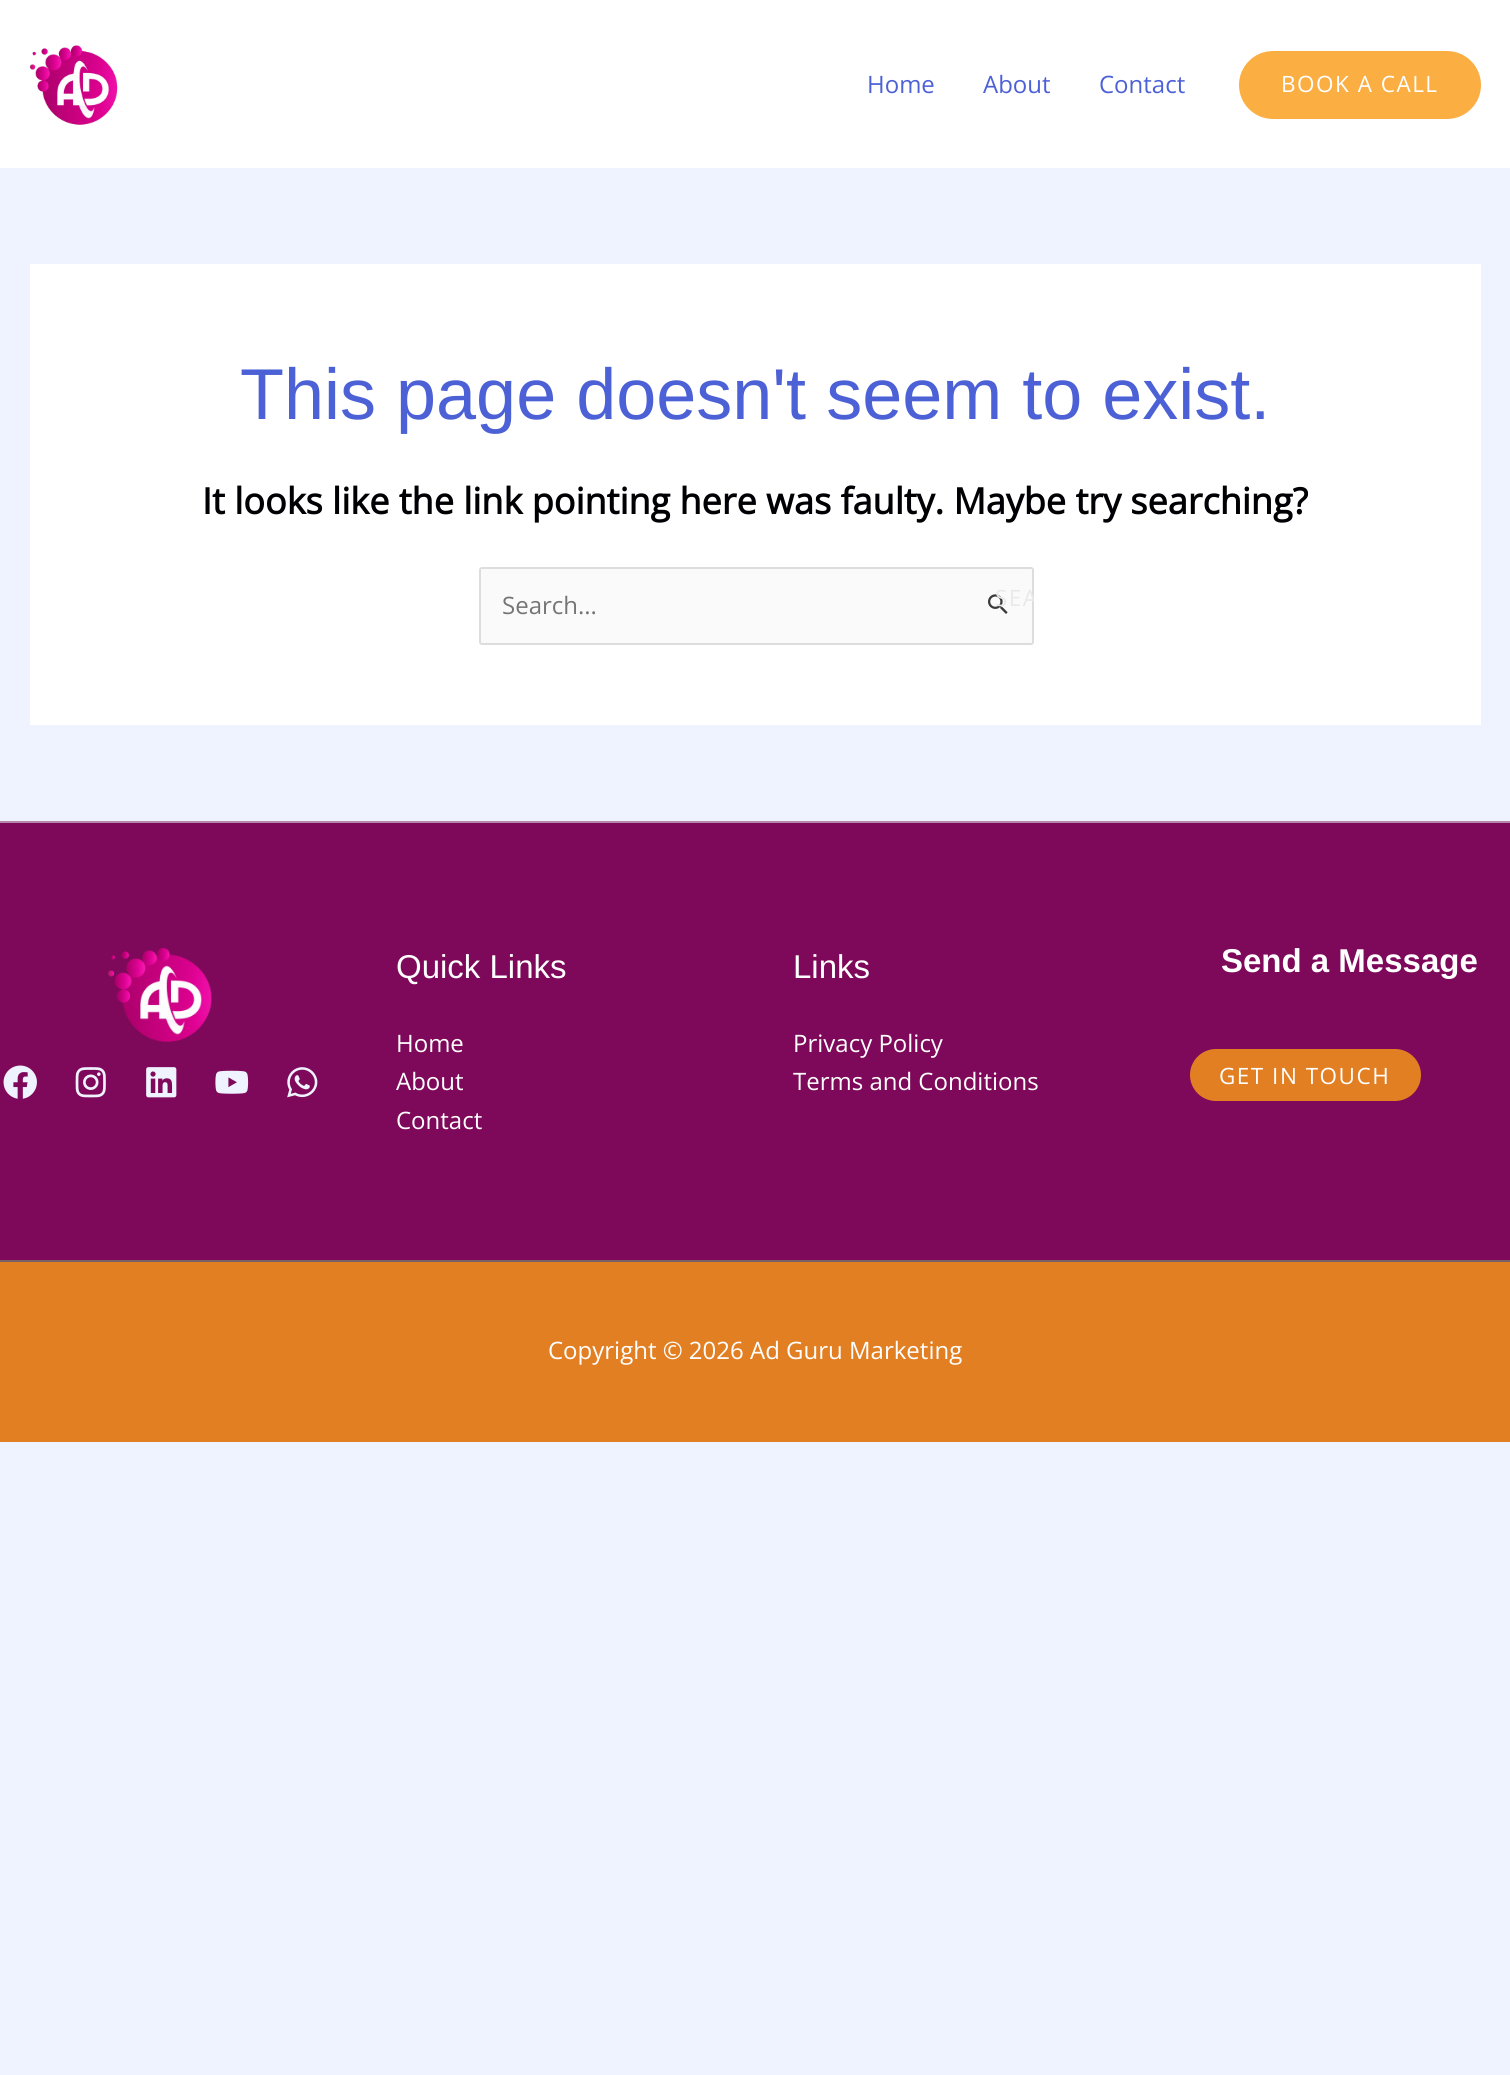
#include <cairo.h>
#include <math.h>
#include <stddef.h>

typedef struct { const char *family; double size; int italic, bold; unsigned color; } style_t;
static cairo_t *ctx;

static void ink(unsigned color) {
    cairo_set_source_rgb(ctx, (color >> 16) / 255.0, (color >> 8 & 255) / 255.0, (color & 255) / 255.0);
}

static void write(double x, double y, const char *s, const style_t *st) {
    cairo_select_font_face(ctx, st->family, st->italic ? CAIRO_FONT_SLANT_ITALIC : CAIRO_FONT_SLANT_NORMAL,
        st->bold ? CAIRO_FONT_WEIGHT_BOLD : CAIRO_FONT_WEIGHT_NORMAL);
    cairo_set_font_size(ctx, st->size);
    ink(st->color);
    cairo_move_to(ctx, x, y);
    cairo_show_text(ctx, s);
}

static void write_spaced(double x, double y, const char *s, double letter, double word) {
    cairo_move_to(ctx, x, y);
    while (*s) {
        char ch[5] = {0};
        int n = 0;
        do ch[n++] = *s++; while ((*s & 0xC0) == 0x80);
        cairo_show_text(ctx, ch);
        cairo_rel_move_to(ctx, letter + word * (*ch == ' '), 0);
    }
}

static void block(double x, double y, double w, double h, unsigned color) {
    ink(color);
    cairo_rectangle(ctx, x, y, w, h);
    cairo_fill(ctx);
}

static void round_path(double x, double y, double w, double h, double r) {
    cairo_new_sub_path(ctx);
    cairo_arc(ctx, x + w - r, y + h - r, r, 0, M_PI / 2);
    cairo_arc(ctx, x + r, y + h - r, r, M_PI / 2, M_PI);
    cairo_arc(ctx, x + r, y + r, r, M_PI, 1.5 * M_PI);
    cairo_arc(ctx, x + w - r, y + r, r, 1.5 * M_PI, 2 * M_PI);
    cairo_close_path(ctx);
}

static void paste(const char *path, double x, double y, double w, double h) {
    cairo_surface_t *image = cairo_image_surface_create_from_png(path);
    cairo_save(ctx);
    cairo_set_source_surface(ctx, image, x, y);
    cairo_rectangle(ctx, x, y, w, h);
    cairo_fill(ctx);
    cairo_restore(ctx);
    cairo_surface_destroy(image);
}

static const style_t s1 = {"Open Sans", 24, 0, 0, 0x4d61d6};
static const style_t s2 = {"Liberation Sans", 72, 0, 0, 0x4d61d6};
static const style_t s3 = {"Open Sans", 36, 0, 1, 0x000004};
static const style_t s4 = {"Open Sans", 24, 0, 0, 0x757575};
static const style_t s5 = {"Liberation Sans", 33, 0, 0, 0xffffff};
static const style_t s6 = {"Open Sans", 24, 0, 0, 0xffffff};
static const style_t s7 = {"Liberation Sans", 33, 0, 1, 0xffffff};

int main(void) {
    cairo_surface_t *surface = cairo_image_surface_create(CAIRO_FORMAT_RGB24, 1510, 2075);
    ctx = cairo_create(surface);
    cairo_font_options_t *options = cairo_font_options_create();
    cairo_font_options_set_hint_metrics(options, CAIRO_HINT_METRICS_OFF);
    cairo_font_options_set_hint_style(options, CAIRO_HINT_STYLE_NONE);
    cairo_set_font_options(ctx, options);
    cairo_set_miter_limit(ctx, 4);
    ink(0xeff2ff);
    cairo_paint(ctx);
    block(0, 0, 1510, 168, 0xffffff);
    paste("pic1.png", 30, 45, 88, 80);
    write(867, 93, "Home", &s1);
    write(983, 93, "About", &s1);
    write(1099, 93, "Contact", &s1);
    ink(0xfbae42);
    round_path(1239, 51, 242, 68, 34);
    cairo_fill(ctx);
    cairo_set_font_size(ctx, 22.5);
    ink(0xffffff);
    write_spaced(1281, 92, "BOOK A CALL", 1.5, 0);
    block(30, 264, 1451, 461, 0xffffff);
    write(240, 419, "This page doesn't seem to exist.", &s2);
    write(202, 514, "It looks like the link pointing here was faulty. Maybe try searching?", &s3);
    ink(0xfafafa);
    round_path(480, 568, 553, 76, 2);
    cairo_fill_preserve(ctx);
    ink(0xdddddd);
    cairo_stroke(ctx);
    write(502, 614, "Search...", &s4);
    paste("pic2.png", 988, 594, 20, 20);
    cairo_save(ctx);
    round_path(966, 567, 68, 62, 3);
    cairo_clip(ctx);
    cairo_set_font_size(ctx, 22.5);
    ink(0xe9e9e9);
    write_spaced(995, 606, "SEA", 1.5, 0);
    cairo_restore(ctx);
    block(0, 823, 1510, 437, 0x7e095a);
    block(0, 821, 1510, 2, 0xb987aa);
    paste("pic3.png", 108, 948, 104, 94);
    paste("pic4.png", 3, 1065, 34, 34);
    paste("pic5.png", 75, 1067, 31, 31);
    paste("pic6.png", 146, 1067, 31, 31);
    paste("pic7.png", 215, 1070, 34, 24);
    paste("pic8.png", 287, 1067, 31, 31);
    write(396, 978, "Quick Links", &s5);
    write(396, 1052, "Home", &s6);
    write(396, 1090, "About", &s6);
    write(396, 1129, "Contact", &s6);
    write(793, 978, "Links", &s5);
    write(793, 1052, "Privacy Policy", &s6);
    write(793, 1090, "Terms and Conditions", &s6);
    write(1221, 972, "Send a Message", &s7);
    ink(0xe27f23);
    round_path(1190, 1049, 231, 52, 26);
    cairo_fill(ctx);
    cairo_select_font_face(ctx, "Open Sans", CAIRO_FONT_SLANT_NORMAL, CAIRO_FONT_WEIGHT_NORMAL);
    cairo_set_font_size(ctx, 22.5);
    ink(0xffffff);
    write_spaced(1219, 1084, "GET IN TOUCH", 1.5, 0);
    block(0, 1262, 1510, 180, 0xe27f23);
    block(0, 1260, 1510, 2, 0x7a6167);
    write(548, 1359, "Copyright © 2026 Ad Guru Marketing", &s6);
    cairo_surface_write_to_png(surface, "screenshot.png");
    cairo_font_options_destroy(options);
    cairo_destroy(ctx);
    cairo_surface_destroy(surface);
    return 0;
}
